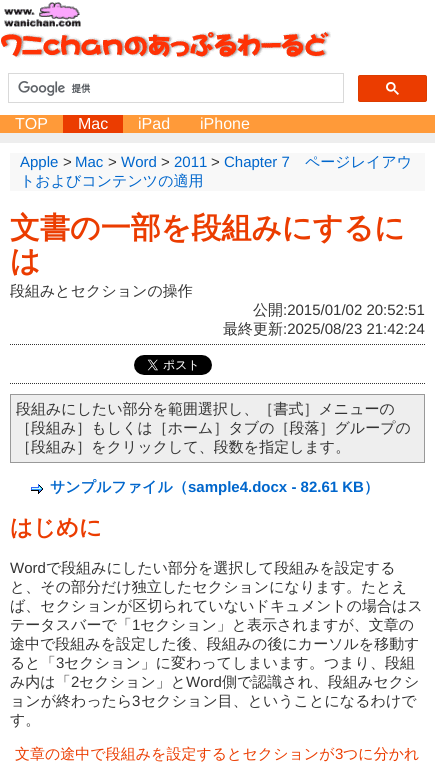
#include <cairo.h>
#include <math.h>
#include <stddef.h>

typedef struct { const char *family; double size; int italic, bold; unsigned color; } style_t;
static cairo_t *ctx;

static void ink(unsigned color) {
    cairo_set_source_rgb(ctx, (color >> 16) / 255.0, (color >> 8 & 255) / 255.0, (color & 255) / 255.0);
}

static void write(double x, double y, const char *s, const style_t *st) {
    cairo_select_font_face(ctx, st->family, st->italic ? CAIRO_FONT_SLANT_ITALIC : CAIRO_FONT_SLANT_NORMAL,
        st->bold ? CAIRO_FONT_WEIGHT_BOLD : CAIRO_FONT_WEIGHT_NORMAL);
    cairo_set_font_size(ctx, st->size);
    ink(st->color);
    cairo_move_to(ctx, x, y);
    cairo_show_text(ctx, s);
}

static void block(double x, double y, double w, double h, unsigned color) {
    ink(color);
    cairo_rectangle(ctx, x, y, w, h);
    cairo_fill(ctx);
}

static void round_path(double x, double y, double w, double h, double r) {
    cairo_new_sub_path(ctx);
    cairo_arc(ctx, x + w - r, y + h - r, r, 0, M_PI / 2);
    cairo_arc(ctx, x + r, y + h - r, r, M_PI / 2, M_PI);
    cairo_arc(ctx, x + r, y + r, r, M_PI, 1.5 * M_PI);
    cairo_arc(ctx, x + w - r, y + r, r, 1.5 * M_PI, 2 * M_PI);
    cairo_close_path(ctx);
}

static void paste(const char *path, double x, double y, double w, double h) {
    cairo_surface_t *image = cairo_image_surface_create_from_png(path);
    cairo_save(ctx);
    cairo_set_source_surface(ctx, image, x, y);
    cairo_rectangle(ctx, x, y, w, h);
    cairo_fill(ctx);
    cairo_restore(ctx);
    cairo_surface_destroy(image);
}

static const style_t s1 = {"Liberation Sans", 16, 0, 0, 0xffffff};
static const style_t s2 = {"Liberation Sans", 15, 0, 0, 0x0066cc};
static const style_t s3 = {"Liberation Sans", 15, 0, 0, 0x333333};
static const style_t s4 = {"WenQuanYi Zen Hei Medium", 15, 0, 0, 0x0066cc};
static const style_t s5 = {"WenQuanYi Zen Hei", 30, 0, 1, 0xeb3c00};
static const style_t s6 = {"WenQuanYi Zen Hei Medium", 15, 0, 0, 0x333333};
static const style_t s7 = {"WenQuanYi Zen Hei", 15, 0, 1, 0x0066cc};
static const style_t s8 = {"Liberation Sans", 15, 0, 1, 0x0066cc};
static const style_t s9 = {"WenQuanYi Zen Hei", 22.5, 0, 1, 0xeb3c00};
static const style_t s10 = {"WenQuanYi Zen Hei Medium", 15, 0, 0, 0xeb3c00};
static const style_t s11 = {"Liberation Sans", 15, 0, 0, 0xeb3c00};

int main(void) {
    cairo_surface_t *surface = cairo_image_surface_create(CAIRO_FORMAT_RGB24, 435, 766);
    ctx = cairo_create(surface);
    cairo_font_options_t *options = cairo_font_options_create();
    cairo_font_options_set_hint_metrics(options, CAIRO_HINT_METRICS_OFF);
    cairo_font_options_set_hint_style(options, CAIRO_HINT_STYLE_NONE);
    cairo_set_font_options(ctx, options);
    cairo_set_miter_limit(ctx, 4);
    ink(0xeeeeee);
    cairo_paint(ctx);
    block(0, 0, 435, 115, 0xffffff);
    paste("pic1.png", 4, 2, 77, 25);
    paste("pic2.png", 1, 31, 330, 27);
    cairo_rectangle(ctx, 8.5, 73.5, 335, 29);
    ink(0xd9d9d9);
    cairo_set_line_width(ctx, 1);
    cairo_stroke(ctx);
    paste("pic3.png", 18, 81, 73, 15);
    ink(0xeb3c00);
    round_path(358.5, 75.5, 68, 26, 1.5);
    cairo_fill_preserve(ctx);
    ink(0xdc3c00);
    cairo_stroke(ctx);
    paste("pic4.png", 386, 82, 13, 13);
    block(0, 115, 435, 18, 0xff9a39);
    write(15, 129, "TOP", &s1);
    block(63, 115, 60, 18, 0xeb3c00);
    write(78, 129, "Mac", &s1);
    write(138, 129, "iPad", &s1);
    write(200, 129, "iPhone", &s1);
    block(0, 143, 435, 623, 0xffffff);
    block(10, 153, 415, 38, 0xf8f8f8);
    write(20, 167, "Apple", &s2);
    write(63, 167, ">", &s3);
    write(75, 167, "Mac", &s2);
    write(108, 167, ">", &s3);
    write(121, 167, "Word", &s2);
    write(161, 167, ">", &s3);
    write(174, 167, "2011", &s2);
    write(211, 167, ">", &s3);
    write(224, 167, "Chapter 7", &s2);
    write(305, 167, "ページレイアウ", &s4);
    write(20, 186, "トおよびコンテンツの適用", &s4);
    write(10, 238, "文書の一部を段組みにするに", &s5);
    write(10, 271, "は", &s5);
    write(10, 296, "段組みとセクションの操作", &s6);
    write(253, 315, "公開", &s6);
    write(283, 315, ":2015/01/02 20:52:51", &s3);
    write(223, 334, "最終更新", &s6);
    write(283, 334, ":2025/08/23 21:42:24", &s3);
    cairo_new_path(ctx);
    cairo_move_to(ctx, 10, 344.5);
    cairo_line_to(ctx, 425, 344.5);
    cairo_set_dash(ctx, (double[]){1, 1}, 2, 0);
    cairo_stroke(ctx);
    cairo_new_path(ctx);
    cairo_move_to(ctx, 10, 383.5);
    cairo_line_to(ctx, 425, 383.5);
    cairo_stroke(ctx);
    paste("pic5.png", 134, 355, 78, 20);
    ink(0xeeeeee);
    cairo_rectangle(ctx, 10.5, 394.5, 414, 68);
    cairo_fill_preserve(ctx);
    ink(0x999999);
    cairo_set_dash(ctx, NULL, 0, 0);
    cairo_stroke(ctx);
    write(16, 414, "段組みにしたい部分を範囲選択し、［書式］メニューの", &s6);
    write(16, 433, "［段組み］もしくは［ホーム］タブの［段落］グループの", &s6);
    write(16, 452, "［段組み］をクリックして、段数を指定します。", &s6);
    paste("pic6.png", 31, 484, 12, 10);
    write(50, 492, "サンプルファイル（", &s7);
    write(188, 492, "sample4.docx - 82.61 KB", &s8);
    write(364, 492, "）", &s7);
    write(10, 535, "はじめに", &s9);
    write(10, 573, "Word", &s3);
    write(46, 573, "で段組みにしたい部分を選択して段組みを設定する", &s6);
    write(10, 592, "と、その部分だけ独立したセクションになります。たとえ", &s6);
    write(10, 611, "ば、セクションが区切られていないドキュメントの場合はス", &s6);
    write(10, 630, "テータスバーで「", &s6);
    write(132, 630, "1", &s3);
    write(140, 630, "セクション」と表示されますが、文章の", &s6);
    write(10, 649, "途中で段組みを設定した後、段組みの後にカーソルを移動す", &s6);
    write(10, 668, "ると「", &s6);
    write(56, 668, "3", &s3);
    write(64, 668, "セクション」に変わってしまいます。つまり、段組", &s6);
    write(10, 687, "み内は「", &s6);
    write(71, 687, "2", &s3);
    write(79, 687, "セクション」と", &s6);
    write(186, 687, "Word", &s3);
    write(222, 687, "側で認識され、段組みセクシ", &s6);
    write(10, 706, "ョンが終わったら", &s6);
    write(132, 706, "3", &s3);
    write(141, 706, "セクション目、ということになるわけで", &s6);
    write(10, 725, "す。", &s6);
    write(15, 759, "文章の途中で段組みを設定するとセクションが", &s10);
    write(335, 759, "3", &s11);
    write(343, 759, "つに分かれ", &s10);
    cairo_surface_write_to_png(surface, "screenshot.png");
    cairo_font_options_destroy(options);
    cairo_destroy(ctx);
    cairo_surface_destroy(surface);
    return 0;
}
